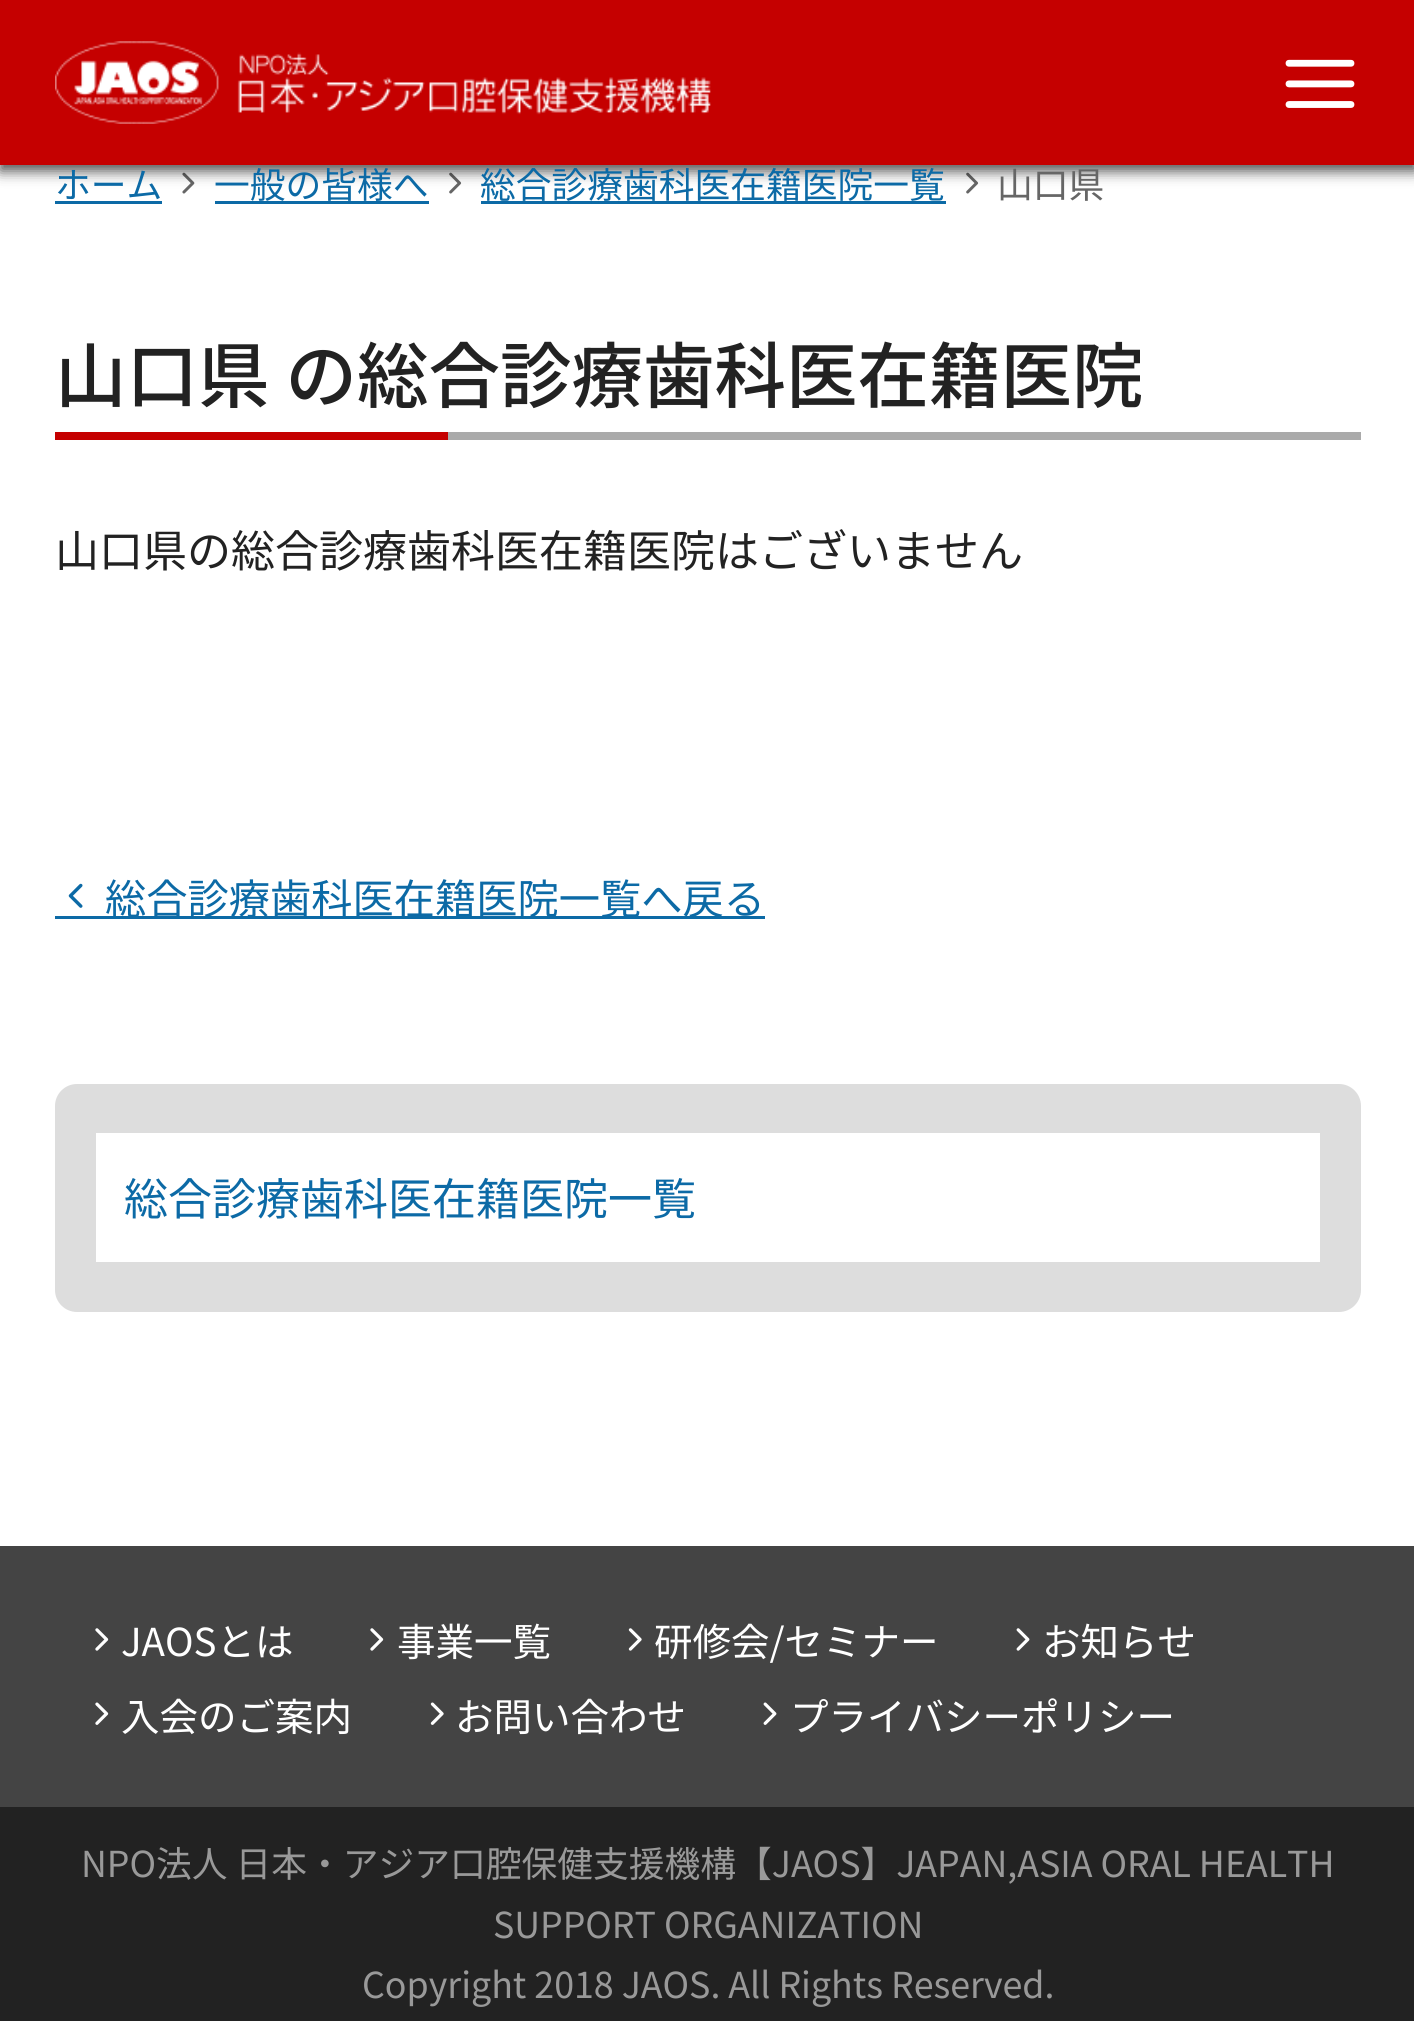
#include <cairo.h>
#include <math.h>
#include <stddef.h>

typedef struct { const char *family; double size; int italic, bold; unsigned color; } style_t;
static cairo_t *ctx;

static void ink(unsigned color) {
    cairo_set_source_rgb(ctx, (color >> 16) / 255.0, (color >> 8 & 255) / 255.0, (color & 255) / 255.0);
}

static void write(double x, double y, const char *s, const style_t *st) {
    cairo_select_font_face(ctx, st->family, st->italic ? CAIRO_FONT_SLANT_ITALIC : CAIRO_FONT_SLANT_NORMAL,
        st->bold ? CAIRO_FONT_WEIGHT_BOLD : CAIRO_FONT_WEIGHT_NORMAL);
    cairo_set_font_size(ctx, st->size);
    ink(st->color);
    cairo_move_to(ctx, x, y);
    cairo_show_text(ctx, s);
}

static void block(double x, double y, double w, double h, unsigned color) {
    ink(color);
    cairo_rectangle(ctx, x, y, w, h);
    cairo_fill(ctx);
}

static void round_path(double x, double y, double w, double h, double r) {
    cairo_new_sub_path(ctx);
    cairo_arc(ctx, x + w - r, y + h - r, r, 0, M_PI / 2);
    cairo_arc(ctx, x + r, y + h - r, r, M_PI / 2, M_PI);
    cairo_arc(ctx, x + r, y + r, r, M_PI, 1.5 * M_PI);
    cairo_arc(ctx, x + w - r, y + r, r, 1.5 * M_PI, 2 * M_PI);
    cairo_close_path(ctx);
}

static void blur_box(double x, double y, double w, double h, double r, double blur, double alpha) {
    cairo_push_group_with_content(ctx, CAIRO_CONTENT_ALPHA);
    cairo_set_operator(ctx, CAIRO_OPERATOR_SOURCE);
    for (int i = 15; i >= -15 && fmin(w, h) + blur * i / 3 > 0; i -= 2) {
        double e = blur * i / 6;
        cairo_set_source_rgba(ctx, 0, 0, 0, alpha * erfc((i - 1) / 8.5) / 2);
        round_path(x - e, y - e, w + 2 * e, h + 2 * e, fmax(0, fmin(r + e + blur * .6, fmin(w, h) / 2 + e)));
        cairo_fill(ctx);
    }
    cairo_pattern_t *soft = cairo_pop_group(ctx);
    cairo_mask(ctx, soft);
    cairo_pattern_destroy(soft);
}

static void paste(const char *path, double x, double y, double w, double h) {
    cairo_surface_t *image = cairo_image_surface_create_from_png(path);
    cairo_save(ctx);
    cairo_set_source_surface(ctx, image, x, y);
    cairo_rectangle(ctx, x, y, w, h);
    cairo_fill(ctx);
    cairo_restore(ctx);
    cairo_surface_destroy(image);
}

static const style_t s1 = {"Noto Sans JP", 35.75, 0, 0, 0x0c6aa6};
static const style_t s2 = {"Noto Sans JP", 35.75, 0, 0, 0x666666};
static const style_t s3 = {"Noto Sans JP Medium", 71.5, 0, 0, 0x222222};
static const style_t s4 = {"Noto Sans JP", 44, 0, 0, 0x222222};
static const style_t s5 = {"Noto Sans JP", 41.25, 0, 0, 0x0c6aa6};
static const style_t s6 = {"Noto Sans JP", 44, 0, 0, 0x0c6aa6};
static const style_t s7 = {"Noto Sans JP", 38.5, 0, 0, 0xffffff};
static const style_t s8 = {"Noto Sans JP", 35.75, 0, 0, 0x999999};

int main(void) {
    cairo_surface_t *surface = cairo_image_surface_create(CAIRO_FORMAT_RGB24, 1414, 2021);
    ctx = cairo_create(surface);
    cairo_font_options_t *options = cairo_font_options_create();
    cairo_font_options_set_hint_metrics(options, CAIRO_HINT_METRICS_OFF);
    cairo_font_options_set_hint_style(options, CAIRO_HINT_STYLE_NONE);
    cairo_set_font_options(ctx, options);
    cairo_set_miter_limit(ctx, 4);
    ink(0xffffff);
    cairo_paint(ctx);
    paste("pic3.png", 182, 172, 13, 22);
    paste("pic4.png", 449, 172, 13, 22);
    paste("pic4.png", 966, 172, 13, 22);
    ink(0x000000);
    blur_box(0, 6, 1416, 165, 0, 7, 0.7);
    block(0, 0, 1414, 165, 0xc50000);
    paste("pic1.png", 55, 41, 656, 83);
    paste("pic2.png", 1285, 59, 70, 49);
    write(55, 198, "ホーム", &s1);
    block(55, 201, 107, 3, 0x0c6aa6);
    write(214, 198, "一般の皆様へ", &s1);
    block(215, 201, 214, 3, 0x0c6aa6);
    write(480, 198, "総合診療歯科医在籍医院一覧", &s1);
    block(481, 201, 465, 3, 0x0c6aa6);
    write(997, 198, "山口県", &s2);
    block(448, 432, 913, 8, 0xaaaaaa);
    write(55, 402, "山口県 の総合診療歯科医在籍医院", &s3);
    block(55, 432, 393, 8, 0xc50000);
    write(55, 567, "山口県の総合診療歯科医在籍医院はございません", &s4);
    paste("pic5.png", 68, 883, 15, 25);
    block(55, 916, 710, 3, 0x0c6aa6);
    write(105, 914, "総合診療歯科医在籍医院一覧へ戻る", &s5);
    ink(0xdddddd);
    round_path(55, 1084, 1306, 228, 22);
    cairo_fill(ctx);
    block(96, 1133, 1224, 129, 0xffffff);
    write(124, 1215, "総合診療歯科医在籍医院一覧", &s6);
    block(0, 1807, 1414, 214, 0x222222);
    block(0, 1546, 1414, 261, 0x444444);
    paste("pic6.png", 95, 1628, 14, 23);
    write(121, 1656, "JAOSとは", &s7);
    paste("pic6.png", 370, 1628, 14, 23);
    write(397, 1656, "事業一覧", &s7);
    paste("pic7.png", 628, 1628, 14, 23);
    write(654, 1656, "研修会/セミナー", &s7);
    paste("pic8.png", 1016, 1628, 14, 23);
    write(1042, 1656, "お知らせ", &s7);
    paste("pic9.png", 95, 1702, 14, 23);
    write(121, 1731, "入会のご案内", &s7);
    paste("pic10.png", 430, 1702, 14, 23);
    write(455, 1731, "お問い合わせ", &s7);
    paste("pic11.png", 763, 1702, 14, 23);
    write(790, 1731, "プライバシーポリシー", &s7);
    write(81, 1877, "NPO法人 日本・アジア口腔保健支援機構【JAOS】JAPAN,ASIA ORAL HEALTH", &s8);
    write(493, 1938, "SUPPORT ORGANIZATION", &s8);
    write(362, 1998, "Copyright 2018 JAOS. All Rights Reserved.", &s8);
    cairo_surface_write_to_png(surface, "screenshot.png");
    cairo_font_options_destroy(options);
    cairo_destroy(ctx);
    cairo_surface_destroy(surface);
    return 0;
}
